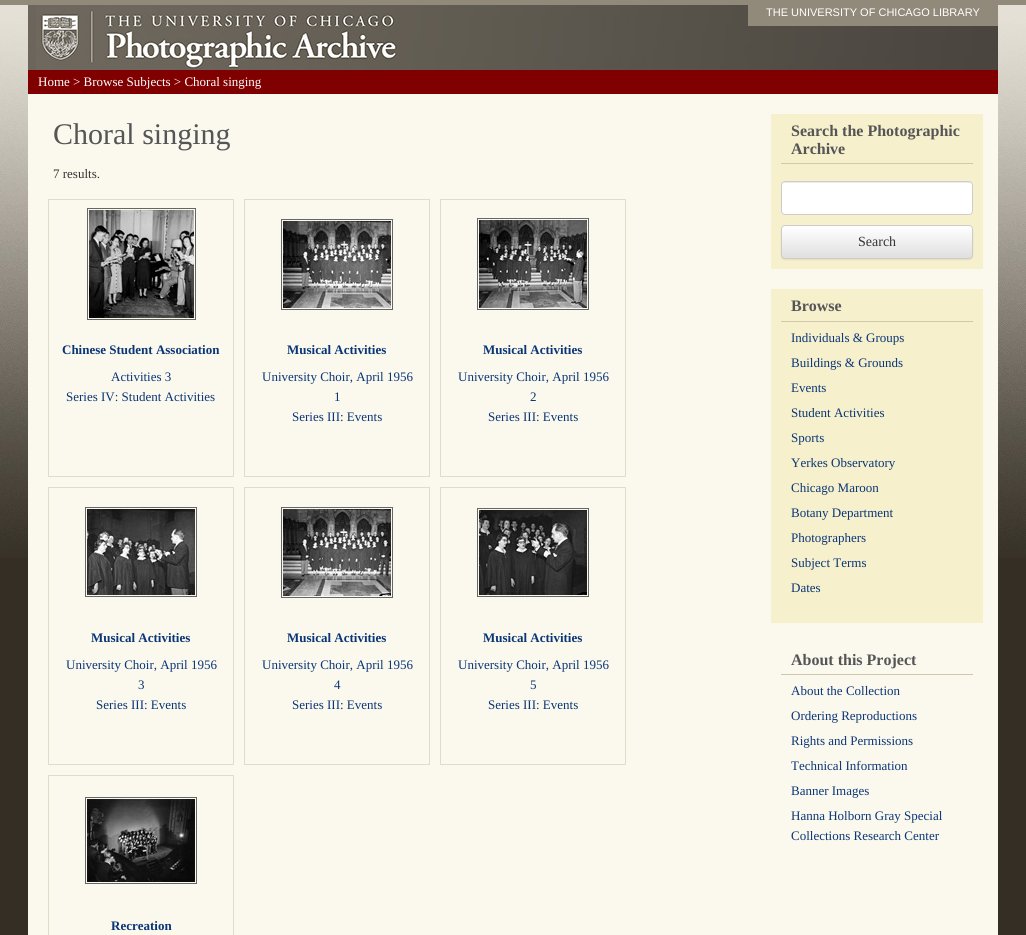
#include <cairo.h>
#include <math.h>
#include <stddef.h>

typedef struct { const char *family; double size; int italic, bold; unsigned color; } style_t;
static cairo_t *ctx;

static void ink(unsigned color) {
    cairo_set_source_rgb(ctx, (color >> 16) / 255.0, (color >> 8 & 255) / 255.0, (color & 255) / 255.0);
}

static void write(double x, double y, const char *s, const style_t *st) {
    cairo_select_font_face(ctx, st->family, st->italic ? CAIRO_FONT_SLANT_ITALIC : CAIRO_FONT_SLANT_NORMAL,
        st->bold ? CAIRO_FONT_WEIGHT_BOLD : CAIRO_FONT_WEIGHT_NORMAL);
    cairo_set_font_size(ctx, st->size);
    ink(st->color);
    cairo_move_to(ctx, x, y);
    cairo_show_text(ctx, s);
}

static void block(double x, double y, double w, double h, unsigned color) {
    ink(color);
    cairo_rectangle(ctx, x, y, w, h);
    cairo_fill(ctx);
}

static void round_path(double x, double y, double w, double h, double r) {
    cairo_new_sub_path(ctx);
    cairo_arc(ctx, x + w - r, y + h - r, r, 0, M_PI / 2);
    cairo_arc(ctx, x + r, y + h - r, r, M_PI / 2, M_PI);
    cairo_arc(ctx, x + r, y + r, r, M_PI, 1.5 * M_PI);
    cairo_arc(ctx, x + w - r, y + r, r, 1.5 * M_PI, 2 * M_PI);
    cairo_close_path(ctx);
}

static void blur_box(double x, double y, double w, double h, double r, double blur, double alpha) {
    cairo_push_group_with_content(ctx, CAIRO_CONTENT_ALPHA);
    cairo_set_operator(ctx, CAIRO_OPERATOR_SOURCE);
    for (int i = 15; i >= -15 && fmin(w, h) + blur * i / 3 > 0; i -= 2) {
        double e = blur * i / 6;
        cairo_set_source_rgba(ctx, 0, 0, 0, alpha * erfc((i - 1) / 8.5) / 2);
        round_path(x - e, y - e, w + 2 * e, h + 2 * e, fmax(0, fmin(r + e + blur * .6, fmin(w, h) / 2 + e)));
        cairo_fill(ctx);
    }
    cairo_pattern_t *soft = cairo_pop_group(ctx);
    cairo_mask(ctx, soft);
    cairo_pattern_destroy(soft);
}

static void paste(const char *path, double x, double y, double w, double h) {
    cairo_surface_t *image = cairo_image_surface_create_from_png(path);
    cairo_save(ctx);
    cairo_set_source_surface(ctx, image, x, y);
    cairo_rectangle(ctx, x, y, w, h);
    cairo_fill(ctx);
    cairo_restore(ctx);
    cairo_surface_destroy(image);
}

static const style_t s1 = {"Liberation Sans", 11, 0, 0, 0xffffff};
static const style_t s2 = {"Liberation Serif", 13, 0, 0, 0xffffff};
static const style_t s3 = {"Liberation Serif", 30, 0, 0, 0x555555};
static const style_t s4 = {"Liberation Serif", 13, 0, 0, 0x333333};
static const style_t s5 = {"Liberation Serif", 13, 0, 1, 0x0a3577};
static const style_t s6 = {"Liberation Serif", 13, 0, 0, 0x0a3577};
static const style_t s7 = {"Liberation Serif", 16, 0, 1, 0x555555};
static const style_t s8 = {"Liberation Serif", 14, 0, 0, 0x333333};

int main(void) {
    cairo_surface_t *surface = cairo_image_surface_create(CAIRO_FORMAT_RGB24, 1026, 935);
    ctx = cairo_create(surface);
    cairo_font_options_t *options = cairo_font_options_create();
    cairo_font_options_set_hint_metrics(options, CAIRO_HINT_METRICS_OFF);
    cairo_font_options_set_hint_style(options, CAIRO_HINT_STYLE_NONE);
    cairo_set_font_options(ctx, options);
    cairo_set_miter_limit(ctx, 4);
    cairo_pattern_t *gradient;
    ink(0x342e25);
    cairo_paint(ctx);
    paste("pic1.png", 0, 5, 1026, 553);
    block(0, 0, 1026, 5, 0x91897a);
    block(28, 5, 8, 65, 0x6c655b);
    paste("pic2.png", 36, 5, 962, 65);
    block(748, 5, 250, 21, 0x91897a);
    write(766, 16, "THE UNIVERSITY OF CHICAGO LIBRARY", &s1);
    block(28, 70, 970, 24, 0x800000);
    write(38, 86, "Home > Browse Subjects > Choral singing", &s2);
    block(28, 94, 970, 841, 0xfbf9ee);
    write(53, 144, "Choral singing", &s3);
    write(53, 178, "7 results.", &s4);
    cairo_rectangle(ctx, 48.5, 199.5, 185, 277);
    ink(0xdfdcc9);
    cairo_set_line_width(ctx, 1);
    cairo_stroke(ctx);
    cairo_rectangle(ctx, 87.5, 208.5, 108, 111);
    ink(0x666666);
    cairo_stroke(ctx);
    paste("pic3.png", 89, 210, 105, 108);
    write(62, 354, "Chinese Student Association", &s5);
    write(111, 381, "Activities 3", &s6);
    write(66, 401, "Series IV: Student Activities", &s6);
    cairo_rectangle(ctx, 244.5, 199.5, 185, 277);
    ink(0xdfdcc9);
    cairo_stroke(ctx);
    cairo_rectangle(ctx, 281.5, 219.5, 111, 90);
    ink(0x666666);
    cairo_stroke(ctx);
    paste("pic4.png", 283, 221, 108, 87);
    write(287, 354, "Musical Activities", &s5);
    write(262, 381, "University Choir, April 1956", &s6);
    write(334, 401, "1", &s6);
    write(292, 421, "Series III: Events", &s6);
    cairo_rectangle(ctx, 440.5, 199.5, 185, 277);
    ink(0xdfdcc9);
    cairo_stroke(ctx);
    cairo_rectangle(ctx, 477.5, 218.5, 111, 91);
    ink(0x666666);
    cairo_stroke(ctx);
    paste("pic5.png", 479, 220, 108, 88);
    write(483, 354, "Musical Activities", &s5);
    write(458, 381, "University Choir, April 1956", &s6);
    write(530, 401, "2", &s6);
    write(488, 421, "Series III: Events", &s6);
    cairo_rectangle(ctx, 48.5, 487.5, 185, 277);
    ink(0xdfdcc9);
    cairo_stroke(ctx);
    cairo_rectangle(ctx, 85.5, 507.5, 111, 89);
    ink(0x666666);
    cairo_stroke(ctx);
    paste("pic6.png", 87, 509, 108, 86);
    write(91, 642, "Musical Activities", &s5);
    write(66, 669, "University Choir, April 1956", &s6);
    write(138, 689, "3", &s6);
    write(96, 709, "Series III: Events", &s6);
    cairo_rectangle(ctx, 244.5, 487.5, 185, 277);
    ink(0xdfdcc9);
    cairo_stroke(ctx);
    cairo_rectangle(ctx, 281.5, 507.5, 111, 90);
    ink(0x666666);
    cairo_stroke(ctx);
    paste("pic7.png", 283, 509, 108, 87);
    write(287, 642, "Musical Activities", &s5);
    write(262, 669, "University Choir, April 1956", &s6);
    write(334, 689, "4", &s6);
    write(292, 709, "Series III: Events", &s6);
    cairo_rectangle(ctx, 440.5, 487.5, 185, 277);
    ink(0xdfdcc9);
    cairo_stroke(ctx);
    cairo_rectangle(ctx, 477.5, 508.5, 111, 88);
    ink(0x666666);
    cairo_stroke(ctx);
    paste("pic8.png", 479, 510, 108, 85);
    write(483, 642, "Musical Activities", &s5);
    write(458, 669, "University Choir, April 1956", &s6);
    write(530, 689, "5", &s6);
    write(488, 709, "Series III: Events", &s6);
    cairo_rectangle(ctx, 48.5, 775.5, 185, 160);
    ink(0xdfdcc9);
    cairo_stroke(ctx);
    cairo_rectangle(ctx, 85.5, 797.5, 111, 86);
    ink(0x666666);
    cairo_stroke(ctx);
    paste("pic9.png", 87, 799, 108, 83);
    write(111, 930, "Recreation", &s5);
    block(771, 114, 212, 155, 0xf6f0cc);
    block(781, 163, 192, 1, 0xd3c8ac);
    write(791, 136, "Search the Photographic", &s7);
    write(791, 154, "Archive", &s7);
    ink(0xffffff);
    round_path(781, 181, 192, 34, 4);
    cairo_fill(ctx);
    ink(0xececec);
    cairo_new_path(ctx);
    cairo_move_to(ctx, 785, 183);
    cairo_line_to(ctx, 969, 183);
    cairo_curve_to(ctx, 971, 183, 972, 184, 972, 186);
    cairo_curve_to(ctx, 972, 184, 971, 182, 969, 182);
    cairo_line_to(ctx, 785, 182);
    cairo_curve_to(ctx, 783, 182, 782, 184, 782, 186);
    cairo_curve_to(ctx, 782, 184, 783, 183, 785, 183);
    cairo_close_path(ctx);
    cairo_fill(ctx);
    round_path(781.5, 181.5, 191, 33, 3.5);
    ink(0xcccccc);
    cairo_stroke(ctx);
    ink(0x000000);
    blur_box(781, 226, 192, 34, 4, 0.5, 0.07);
    cairo_save(ctx);
    round_path(781, 225, 192, 34, 4);
    cairo_clip(ctx);
    gradient = cairo_pattern_create_linear(877, 226, 877, 258);
    cairo_pattern_add_color_stop_rgba(gradient, 0, 1, 1, 1, 1);
    cairo_pattern_add_color_stop_rgba(gradient, 1, 0.878, 0.878, 0.878, 1);
    cairo_set_source(ctx, gradient);
    cairo_pattern_destroy(gradient);
    cairo_rectangle(ctx, 781, 226, 192, 32);
    cairo_fill(ctx);
    cairo_restore(ctx);
    round_path(781.5, 225.5, 191, 33, 3.5);
    ink(0xcccccc);
    cairo_stroke(ctx);
    write(858, 246, "Search", &s8);
    block(771, 289, 212, 334, 0xf6f0cc);
    block(781, 321, 192, 1, 0xd3c8ac);
    write(791, 311, "Browse", &s7);
    write(791, 342, "Individuals & Groups", &s6);
    write(791, 367, "Buildings & Grounds", &s6);
    write(791, 392, "Events", &s6);
    write(791, 417, "Student Activities", &s6);
    write(791, 442, "Sports", &s6);
    write(791, 467, "Yerkes Observatory", &s6);
    write(791, 492, "Chicago Maroon", &s6);
    write(791, 517, "Botany Department", &s6);
    write(791, 542, "Photographers", &s6);
    write(791, 567, "Subject Terms", &s6);
    write(791, 592, "Dates", &s6);
    block(781, 674, 192, 1, 0xd3c8ac);
    write(791, 665, "About this Project", &s7);
    write(791, 695, "About the Collection", &s6);
    write(791, 720, "Ordering Reproductions", &s6);
    write(791, 745, "Rights and Permissions", &s6);
    write(791, 770, "Technical Information", &s6);
    write(791, 795, "Banner Images", &s6);
    write(791, 820, "Hanna Holborn Gray Special", &s6);
    write(791, 840, "Collections Research Center", &s6);
    cairo_surface_write_to_png(surface, "screenshot.png");
    cairo_font_options_destroy(options);
    cairo_destroy(ctx);
    cairo_surface_destroy(surface);
    return 0;
}
